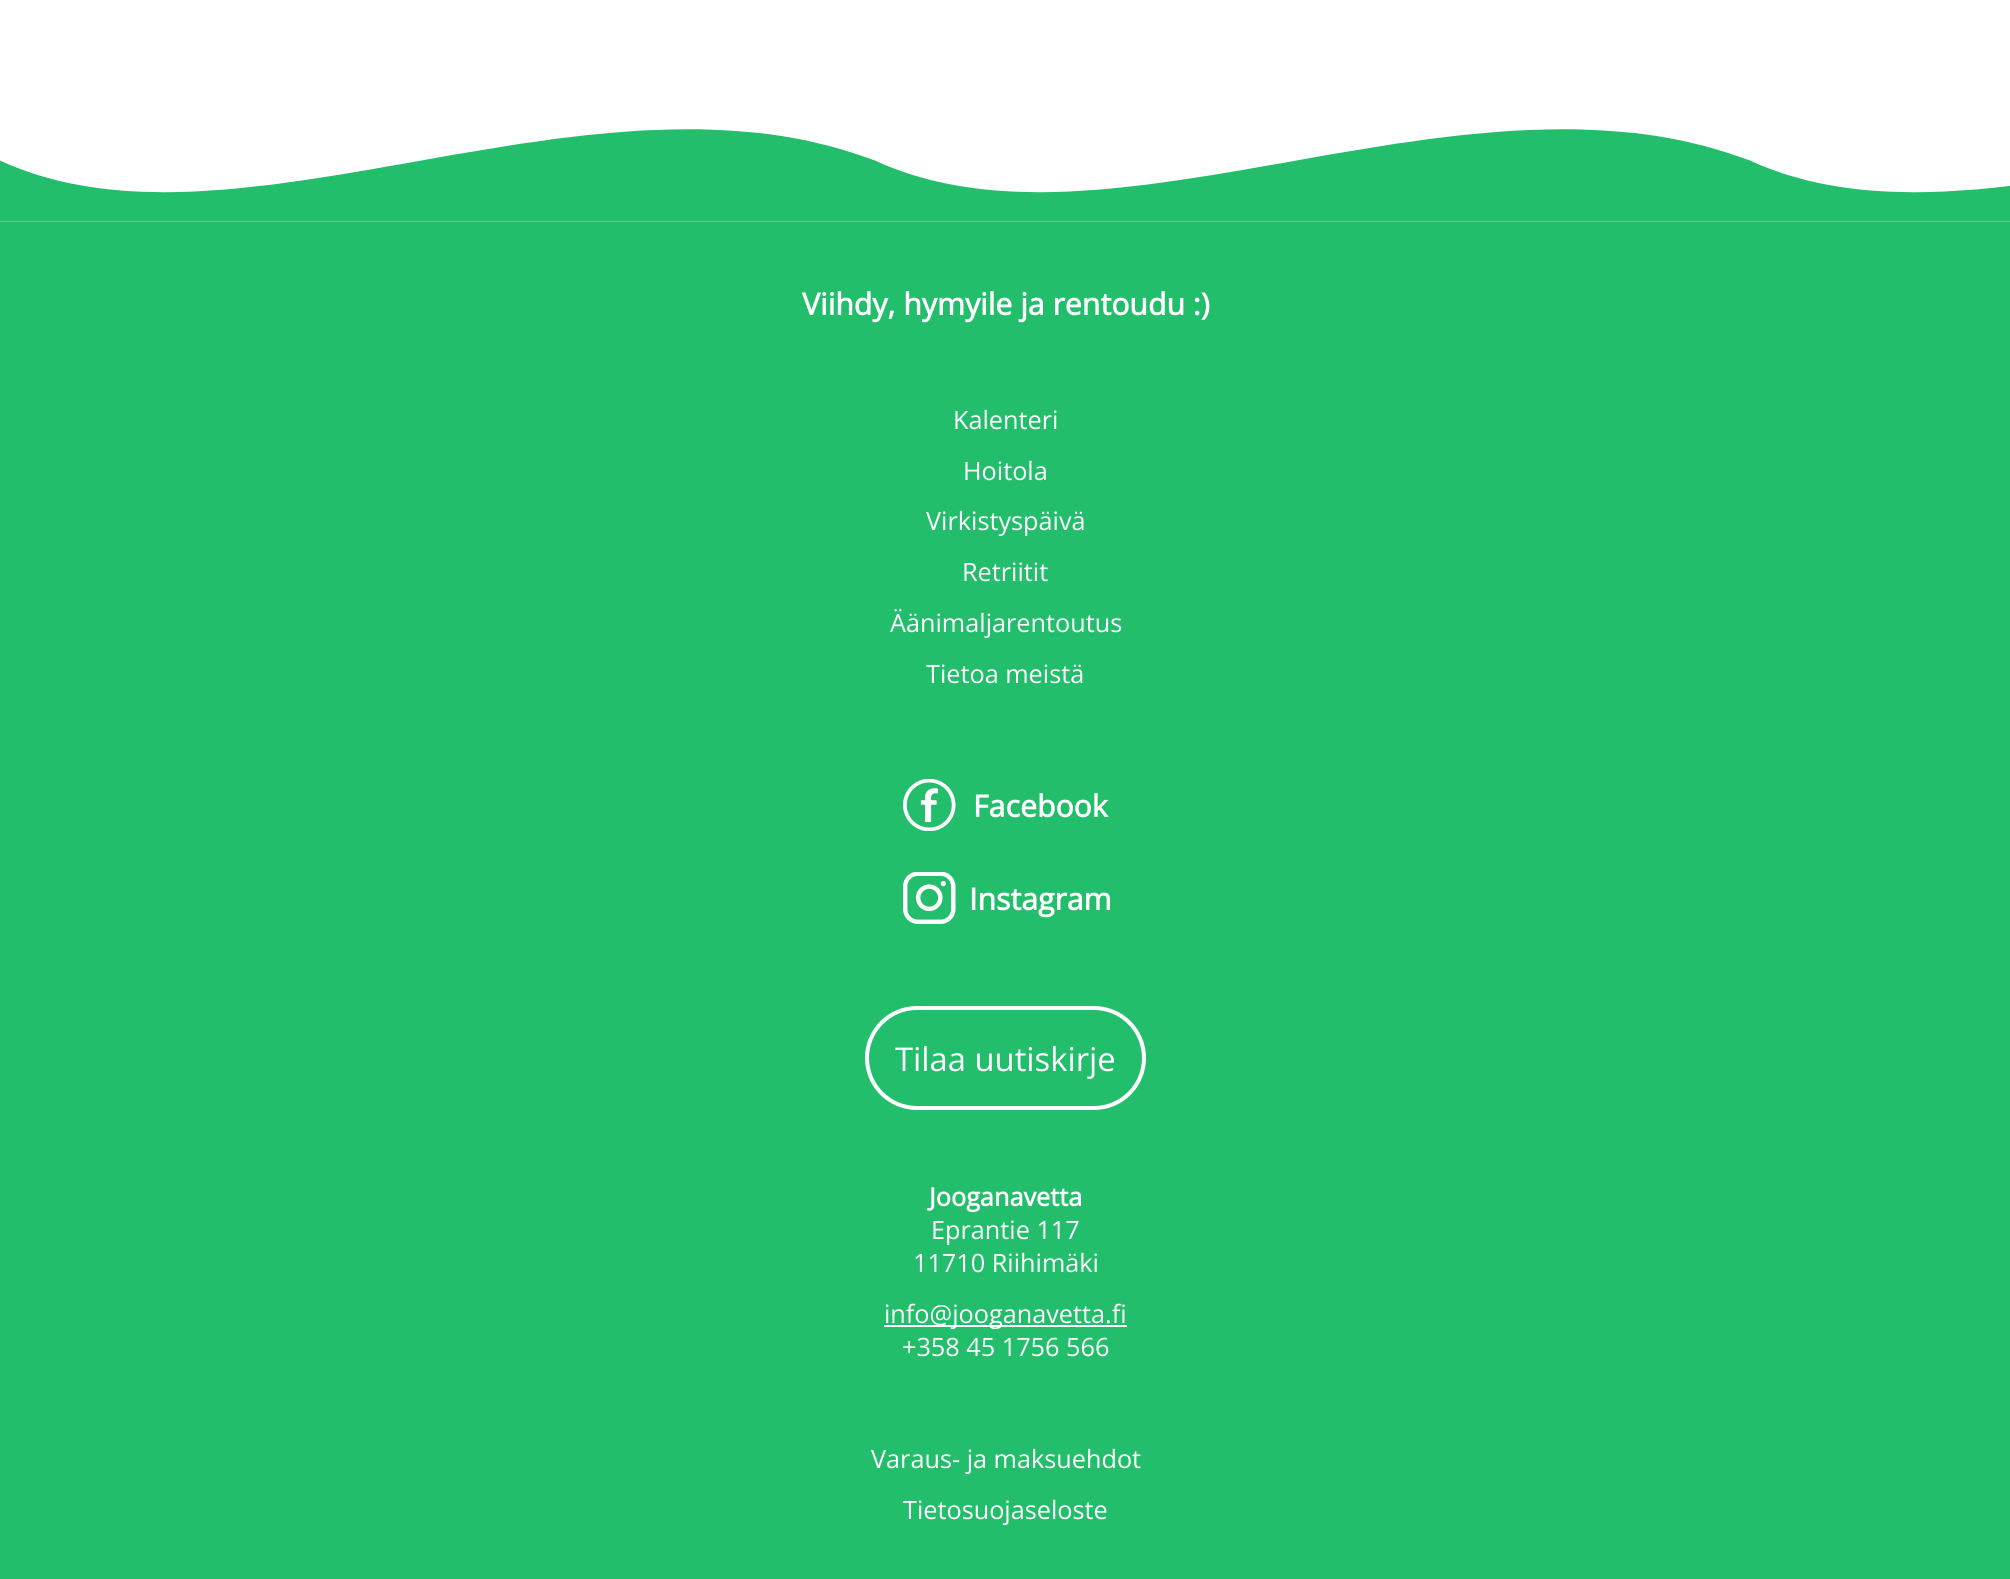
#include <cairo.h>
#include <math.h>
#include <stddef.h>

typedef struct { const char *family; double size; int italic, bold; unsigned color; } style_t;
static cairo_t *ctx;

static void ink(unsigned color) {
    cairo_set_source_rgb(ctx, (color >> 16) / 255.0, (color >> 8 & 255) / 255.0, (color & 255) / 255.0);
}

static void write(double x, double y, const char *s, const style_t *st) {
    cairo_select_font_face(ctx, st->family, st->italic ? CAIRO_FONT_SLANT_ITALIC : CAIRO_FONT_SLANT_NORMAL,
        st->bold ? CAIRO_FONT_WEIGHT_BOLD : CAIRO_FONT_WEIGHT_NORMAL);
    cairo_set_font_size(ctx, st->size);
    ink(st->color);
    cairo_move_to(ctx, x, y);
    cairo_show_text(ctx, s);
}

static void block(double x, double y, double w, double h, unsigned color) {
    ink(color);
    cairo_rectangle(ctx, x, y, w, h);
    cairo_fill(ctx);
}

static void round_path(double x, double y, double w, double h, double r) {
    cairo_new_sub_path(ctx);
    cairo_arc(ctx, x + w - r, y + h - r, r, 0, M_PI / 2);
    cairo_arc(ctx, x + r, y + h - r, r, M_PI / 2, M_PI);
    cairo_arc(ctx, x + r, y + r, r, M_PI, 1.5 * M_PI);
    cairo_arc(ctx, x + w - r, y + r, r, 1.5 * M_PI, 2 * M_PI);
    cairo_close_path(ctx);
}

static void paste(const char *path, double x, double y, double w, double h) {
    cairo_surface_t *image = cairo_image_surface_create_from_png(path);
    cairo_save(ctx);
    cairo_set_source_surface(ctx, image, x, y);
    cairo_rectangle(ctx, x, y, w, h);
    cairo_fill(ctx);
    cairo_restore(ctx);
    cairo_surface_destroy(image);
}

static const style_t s1 = {"Open Sans", 30.25, 0, 1, 0xffffff};
static const style_t s2 = {"Open Sans", 25.25, 0, 0, 0xffffff};
static const style_t s3 = {"Open Sans", 32.75, 0, 0, 0xffffff};
static const style_t s4 = {"Open Sans", 25.25, 0, 1, 0xffffff};

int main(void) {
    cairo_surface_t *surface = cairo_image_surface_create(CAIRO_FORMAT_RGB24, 2010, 1579);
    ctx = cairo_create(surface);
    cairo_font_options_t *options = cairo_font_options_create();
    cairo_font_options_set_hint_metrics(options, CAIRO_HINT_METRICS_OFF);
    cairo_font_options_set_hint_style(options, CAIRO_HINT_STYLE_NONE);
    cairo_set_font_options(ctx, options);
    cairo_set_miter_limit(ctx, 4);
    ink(0xffffff);
    cairo_paint(ctx);
    paste("pic1.png", 0, 129, 2010, 93);
    block(0, 222, 2010, 1357, 0x23be6c);
    write(802, 315, "Viihdy, hymyile ja rentoudu :)", &s1);
    write(953, 429, "Kalenteri", &s2);
    write(963, 480, "Hoitola", &s2);
    write(926, 530, "Virkistyspäivä", &s2);
    write(962, 581, "Retriitit", &s2);
    write(890, 632, "Äänimaljarentoutus", &s2);
    write(926, 683, "Tietoa meistä", &s2);
    paste("pic2.png", 903, 779, 53, 52);
    write(973, 817, "Facebook", &s1);
    paste("pic3.png", 903, 872, 53, 52);
    write(969, 910, "Instagram", &s1);
    round_path(867, 1008, 277, 100, 50);
    cairo_set_line_width(ctx, 4);
    cairo_stroke(ctx);
    write(895, 1071, "Tilaa uutiskirje", &s3);
    write(929, 1206, "Jooganavetta", &s4);
    write(931, 1239, "Eprantie 117", &s2);
    write(913, 1272, "11710 Riihimäki", &s2);
    block(884, 1325, 243, 2, 0xffffff);
    write(884, 1323, "info@jooganavetta.fi", &s2);
    write(902, 1356, "+358 45 1756 566", &s2);
    write(871, 1468, "Varaus- ja maksuehdot", &s2);
    write(903, 1519, "Tietosuojaseloste", &s2);
    cairo_surface_write_to_png(surface, "screenshot.png");
    cairo_font_options_destroy(options);
    cairo_destroy(ctx);
    cairo_surface_destroy(surface);
    return 0;
}
